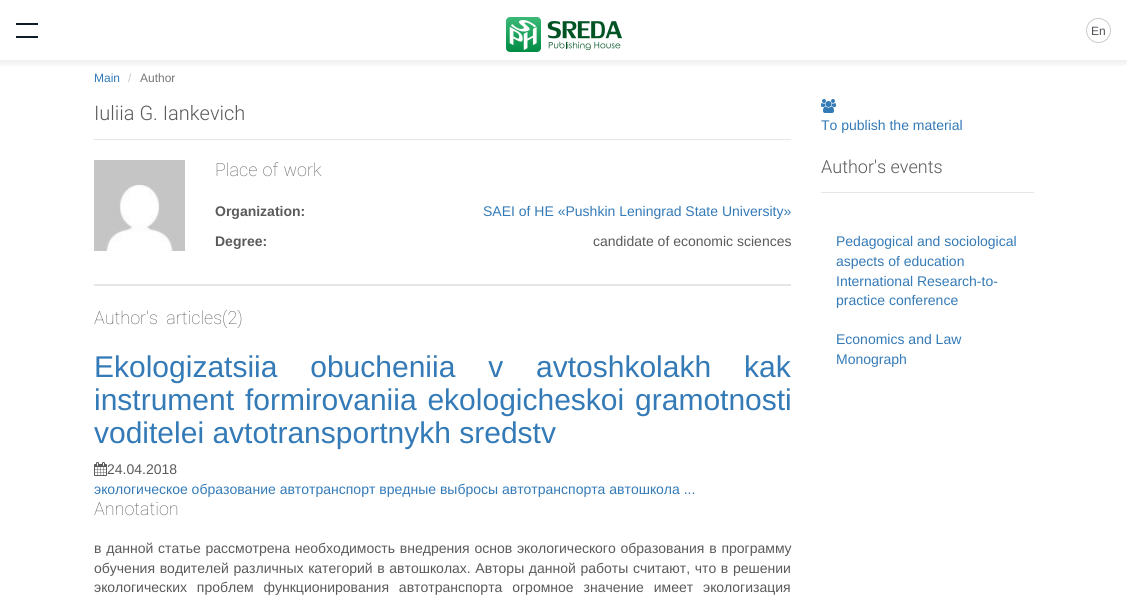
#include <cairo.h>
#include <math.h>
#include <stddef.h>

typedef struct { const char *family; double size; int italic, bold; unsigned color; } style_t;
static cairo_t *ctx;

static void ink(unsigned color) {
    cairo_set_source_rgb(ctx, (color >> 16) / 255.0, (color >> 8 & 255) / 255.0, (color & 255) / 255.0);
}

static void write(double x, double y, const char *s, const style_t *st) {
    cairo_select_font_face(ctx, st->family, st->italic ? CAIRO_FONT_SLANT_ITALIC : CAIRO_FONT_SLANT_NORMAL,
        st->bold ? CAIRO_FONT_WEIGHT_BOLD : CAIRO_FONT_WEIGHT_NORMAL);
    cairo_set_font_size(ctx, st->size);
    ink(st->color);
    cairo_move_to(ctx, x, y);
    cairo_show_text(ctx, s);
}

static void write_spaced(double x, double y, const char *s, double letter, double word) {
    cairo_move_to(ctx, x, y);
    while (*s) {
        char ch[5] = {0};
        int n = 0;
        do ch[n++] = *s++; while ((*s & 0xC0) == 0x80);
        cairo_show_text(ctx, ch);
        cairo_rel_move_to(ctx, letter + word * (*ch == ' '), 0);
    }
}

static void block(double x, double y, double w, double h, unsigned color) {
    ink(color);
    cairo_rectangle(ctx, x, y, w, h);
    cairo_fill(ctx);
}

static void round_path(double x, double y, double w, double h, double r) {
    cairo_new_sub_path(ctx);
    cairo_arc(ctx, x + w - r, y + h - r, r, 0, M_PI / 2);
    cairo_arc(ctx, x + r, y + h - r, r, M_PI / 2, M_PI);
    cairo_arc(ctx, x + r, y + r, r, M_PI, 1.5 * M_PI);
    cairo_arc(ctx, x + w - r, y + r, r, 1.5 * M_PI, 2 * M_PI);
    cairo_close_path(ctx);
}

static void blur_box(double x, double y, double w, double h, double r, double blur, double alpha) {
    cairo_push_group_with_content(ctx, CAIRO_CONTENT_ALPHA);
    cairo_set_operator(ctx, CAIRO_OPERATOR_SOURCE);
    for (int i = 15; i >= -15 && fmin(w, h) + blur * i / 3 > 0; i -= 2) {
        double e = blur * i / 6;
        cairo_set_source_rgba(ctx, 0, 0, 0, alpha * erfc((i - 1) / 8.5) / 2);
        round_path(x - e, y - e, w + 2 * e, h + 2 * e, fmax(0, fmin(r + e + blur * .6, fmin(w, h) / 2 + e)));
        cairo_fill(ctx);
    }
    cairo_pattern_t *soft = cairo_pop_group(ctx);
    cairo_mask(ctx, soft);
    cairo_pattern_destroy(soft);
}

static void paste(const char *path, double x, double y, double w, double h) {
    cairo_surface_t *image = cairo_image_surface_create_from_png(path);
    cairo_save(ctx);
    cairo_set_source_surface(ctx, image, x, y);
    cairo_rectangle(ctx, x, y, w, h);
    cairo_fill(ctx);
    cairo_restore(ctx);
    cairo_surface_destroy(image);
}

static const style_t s1 = {"Liberation Sans", 12, 0, 0, 0x52525c};
static const style_t s2 = {"Liberation Sans", 12, 0, 0, 0x337ab7};
static const style_t s3 = {"Liberation Sans", 12, 0, 0, 0xcccccc};
static const style_t s4 = {"Liberation Sans", 12, 0, 0, 0x777777};
static const style_t s5 = {"Roboto Light", 20, 0, 0, 0x5a5a5a};
static const style_t s6 = {"Liberation Sans", 14, 0, 1, 0x5a5a5a};
static const style_t s7 = {"Liberation Sans", 14, 0, 0, 0x337ab7};
static const style_t s8 = {"Liberation Sans", 14, 0, 0, 0x5a5a5a};
static const style_t s9 = {"Liberation Sans", 30, 0, 0, 0x337ab7};
static const style_t s10 = {"Roboto Thin", 18, 0, 0, 0x5a5a5a};
static const style_t s11 = {"Roboto Light", 18, 0, 0, 0x5a5a5a};

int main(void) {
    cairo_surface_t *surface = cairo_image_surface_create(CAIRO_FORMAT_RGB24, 1127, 606);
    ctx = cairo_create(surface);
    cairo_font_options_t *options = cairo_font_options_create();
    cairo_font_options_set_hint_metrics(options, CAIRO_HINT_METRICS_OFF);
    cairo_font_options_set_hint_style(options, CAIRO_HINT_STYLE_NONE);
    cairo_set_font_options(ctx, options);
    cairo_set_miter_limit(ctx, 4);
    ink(0xffffff);
    cairo_paint(ctx);
    cairo_save(ctx);
    cairo_rectangle(ctx, 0, 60, 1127, 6);
    cairo_clip(ctx);
    ink(0x000000);
    blur_box(0, 2, 1127, 60, 0, 5, 0.1);
    cairo_restore(ctx);
    block(16, 23, 22, 2, 0x0e1c2a);
    block(16, 36, 22, 2, 0x0e1c2a);
    paste("pic1.png", 506, 17, 116, 35);
    cairo_arc(ctx, 1098.5, 30.5, 12, 0, 2 * M_PI);
    ink(0xcccccc);
    cairo_set_line_width(ctx, 1);
    cairo_stroke(ctx);
    write(1091, 35, "En", &s1);
    write(94, 82, "Main", &s2);
    write(128, 82, "/", &s3);
    write(140, 82, "Author", &s4);
    block(94, 139, 697, 1, 0xe6e6e6);
    write(94, 120, "Iuliia G. Iankevich", &s5);
    paste("pic2.png", 94, 160, 91, 91);
    cairo_select_font_face(ctx, "Roboto Thin", CAIRO_FONT_SLANT_NORMAL, CAIRO_FONT_WEIGHT_NORMAL);
    cairo_set_font_size(ctx, 18);
    write_spaced(215, 176, "Place of work", 0, 1);
    write(215, 216, "Organization:", &s6);
    write(483, 216, "SAEI of HE «Pushkin Leningrad State University»", &s7);
    write(215, 246, "Degree:", &s6);
    write(593, 246, "candidate of economic sciences", &s8);
    block(94, 284, 697, 2, 0xe6e6e6);
    cairo_select_font_face(ctx, "Roboto Thin", CAIRO_FONT_SLANT_NORMAL, CAIRO_FONT_WEIGHT_NORMAL);
    cairo_set_font_size(ctx, 18);
    ink(0x5a5a5a);
    write_spaced(94, 324, "Author's articles(2)", 0, 4);
    cairo_select_font_face(ctx, "Liberation Sans", CAIRO_FONT_SLANT_NORMAL, CAIRO_FONT_WEIGHT_NORMAL);
    cairo_set_font_size(ctx, 30);
    ink(0x337ab7);
    write_spaced(94, 377, "Ekologizatsiia obucheniia v avtoshkolakh kak", 0, 24.5);
    write_spaced(94, 410, "instrument formirovaniia ekologicheskoi gramotnosti", 0, 2.5);
    write(94, 443, "voditelei avtotransportnykh sredstv", &s9);
    paste("pic3.png", 94, 462, 13, 14);
    write(107, 474, "24.04.2018", &s8);
    write(94, 494, "экологическое образование автотранспорт вредные выбросы автотранспорта автошкола ...", &s7);
    write(94, 515, "Annotation", &s10);
    cairo_select_font_face(ctx, "Liberation Sans", CAIRO_FONT_SLANT_NORMAL, CAIRO_FONT_WEIGHT_NORMAL);
    cairo_set_font_size(ctx, 14);
    write_spaced(94, 553, "в данной статье рассмотрена необходимость внедрения основ экологического образования в программу", 0, 0.9);
    write_spaced(94, 573, "обучения водителей различных категорий в автошколах. Авторы данной работы считают, что в решении", 0, 0.75);
    write_spaced(94, 592, "экологических проблем функционирования автотранспорта огромное значение имеет экологизация", 0, 6);
    paste("pic4.png", 821, 99, 15, 14);
    write(821, 130, "To publish the material", &s7);
    block(821, 192, 213, 1, 0xe6e6e6);
    write(821, 173, "Author's events", &s11);
    write(836, 246, "Pedagogical and sociological", &s7);
    write(836, 266, "aspects of education", &s7);
    write(836, 286, "International Research-to-", &s7);
    write(836, 305, "practice conference", &s7);
    write(836, 344, "Economics and Law", &s7);
    write(836, 364, "Monograph", &s7);
    cairo_surface_write_to_png(surface, "screenshot.png");
    cairo_font_options_destroy(options);
    cairo_destroy(ctx);
    cairo_surface_destroy(surface);
    return 0;
}
